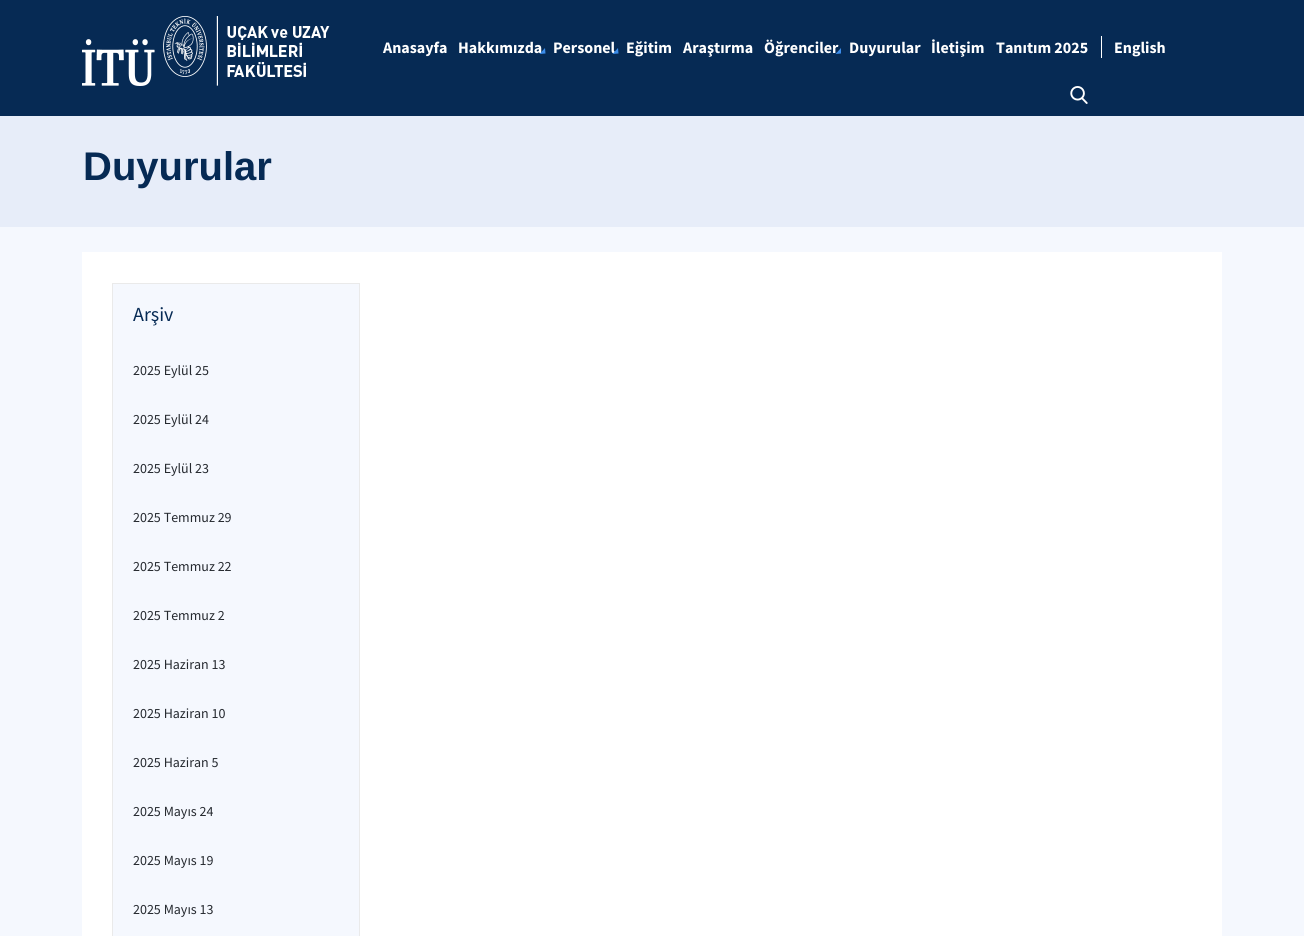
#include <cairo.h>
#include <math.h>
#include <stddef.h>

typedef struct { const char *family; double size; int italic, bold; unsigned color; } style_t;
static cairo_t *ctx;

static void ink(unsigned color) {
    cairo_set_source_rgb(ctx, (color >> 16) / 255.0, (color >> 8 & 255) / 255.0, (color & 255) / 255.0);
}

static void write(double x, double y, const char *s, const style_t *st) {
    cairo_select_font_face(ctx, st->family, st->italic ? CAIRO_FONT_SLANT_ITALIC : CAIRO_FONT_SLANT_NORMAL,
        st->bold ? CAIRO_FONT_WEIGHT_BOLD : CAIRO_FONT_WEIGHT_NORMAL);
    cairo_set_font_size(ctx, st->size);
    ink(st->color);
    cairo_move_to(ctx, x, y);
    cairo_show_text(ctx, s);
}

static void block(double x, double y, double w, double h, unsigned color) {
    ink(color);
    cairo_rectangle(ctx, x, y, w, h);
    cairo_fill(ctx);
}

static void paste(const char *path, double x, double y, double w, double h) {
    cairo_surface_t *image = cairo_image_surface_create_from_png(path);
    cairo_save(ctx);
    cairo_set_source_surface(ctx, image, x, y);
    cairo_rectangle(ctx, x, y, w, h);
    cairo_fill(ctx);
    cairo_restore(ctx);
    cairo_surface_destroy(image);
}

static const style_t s1 = {"Source Sans Pro", 16, 0, 1, 0xffffff};
static const style_t s2 = {"Liberation Sans", 40, 0, 1, 0x062a54};
static const style_t s3 = {"Source Sans Pro", 20, 0, 0, 0x062a54};
static const style_t s4 = {"Source Sans Pro", 14, 0, 0, 0x25292f};

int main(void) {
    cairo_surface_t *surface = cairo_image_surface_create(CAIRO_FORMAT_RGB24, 1304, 936);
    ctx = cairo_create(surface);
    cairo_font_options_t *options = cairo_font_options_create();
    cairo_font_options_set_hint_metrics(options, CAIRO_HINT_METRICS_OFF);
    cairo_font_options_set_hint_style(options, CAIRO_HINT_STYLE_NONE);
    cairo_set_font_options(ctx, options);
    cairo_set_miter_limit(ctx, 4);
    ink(0xf5f8fe);
    cairo_paint(ctx);
    block(0, 0, 1304, 116, 0x062a54);
    paste("pic1.png", 82, 16, 248, 70);
    write(383, 53, "Anasayfa", &s1);
    write(458, 53, "Hakkımızda", &s1);
    ink(0x3b8cea);
    cairo_new_path(ctx);
    cairo_move_to(ctx, 539.5, 54);
    cairo_line_to(ctx, 545.5, 53.5);
    cairo_line_to(ctx, 545, 48);
    cairo_close_path(ctx);
    cairo_fill(ctx);
    write(553, 53, "Personel", &s1);
    ink(0x3b8cea);
    cairo_new_path(ctx);
    cairo_move_to(ctx, 612.5, 54);
    cairo_line_to(ctx, 618.5, 53.5);
    cairo_line_to(ctx, 618, 48);
    cairo_close_path(ctx);
    cairo_fill(ctx);
    write(626, 53, "Eğitim", &s1);
    write(683, 53, "Araştırma", &s1);
    write(764, 53, "Öğrenciler", &s1);
    ink(0x3b8cea);
    cairo_new_path(ctx);
    cairo_move_to(ctx, 835.5, 54);
    cairo_line_to(ctx, 841, 53.5);
    cairo_line_to(ctx, 841, 48);
    cairo_close_path(ctx);
    cairo_fill(ctx);
    write(849, 53, "Duyurular", &s1);
    write(931, 53, "İletişim", &s1);
    write(996, 53, "Tanıtım 2025", &s1);
    paste("pic2.png", 1070, 86, 18, 18);
    block(1101, 36, 1, 22, 0xffffff);
    write(1114, 53, "English", &s1);
    block(0, 116, 1304, 111, 0xe7edf9);
    write(83, 180, "Duyurular", &s2);
    block(82, 252, 1140, 684, 0xffffff);
    ink(0xf5f8fe);
    cairo_rectangle(ctx, 112.5, 283.5, 247, 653);
    cairo_fill_preserve(ctx);
    ink(0xeaeaea);
    cairo_set_line_width(ctx, 1);
    cairo_stroke(ctx);
    write(133, 321, "Arşiv", &s3);
    write(133, 375, "2025 Eylül 25", &s4);
    write(133, 424, "2025 Eylül 24", &s4);
    write(133, 473, "2025 Eylül 23", &s4);
    write(133, 522, "2025 Temmuz 29", &s4);
    write(133, 571, "2025 Temmuz 22", &s4);
    write(133, 620, "2025 Temmuz 2", &s4);
    write(133, 669, "2025 Haziran 13", &s4);
    write(133, 718, "2025 Haziran 10", &s4);
    write(133, 767, "2025 Haziran 5", &s4);
    write(133, 816, "2025 Mayıs 24", &s4);
    write(133, 865, "2025 Mayıs 19", &s4);
    write(133, 914, "2025 Mayıs 13", &s4);
    cairo_surface_write_to_png(surface, "screenshot.png");
    cairo_font_options_destroy(options);
    cairo_destroy(ctx);
    cairo_surface_destroy(surface);
    return 0;
}
